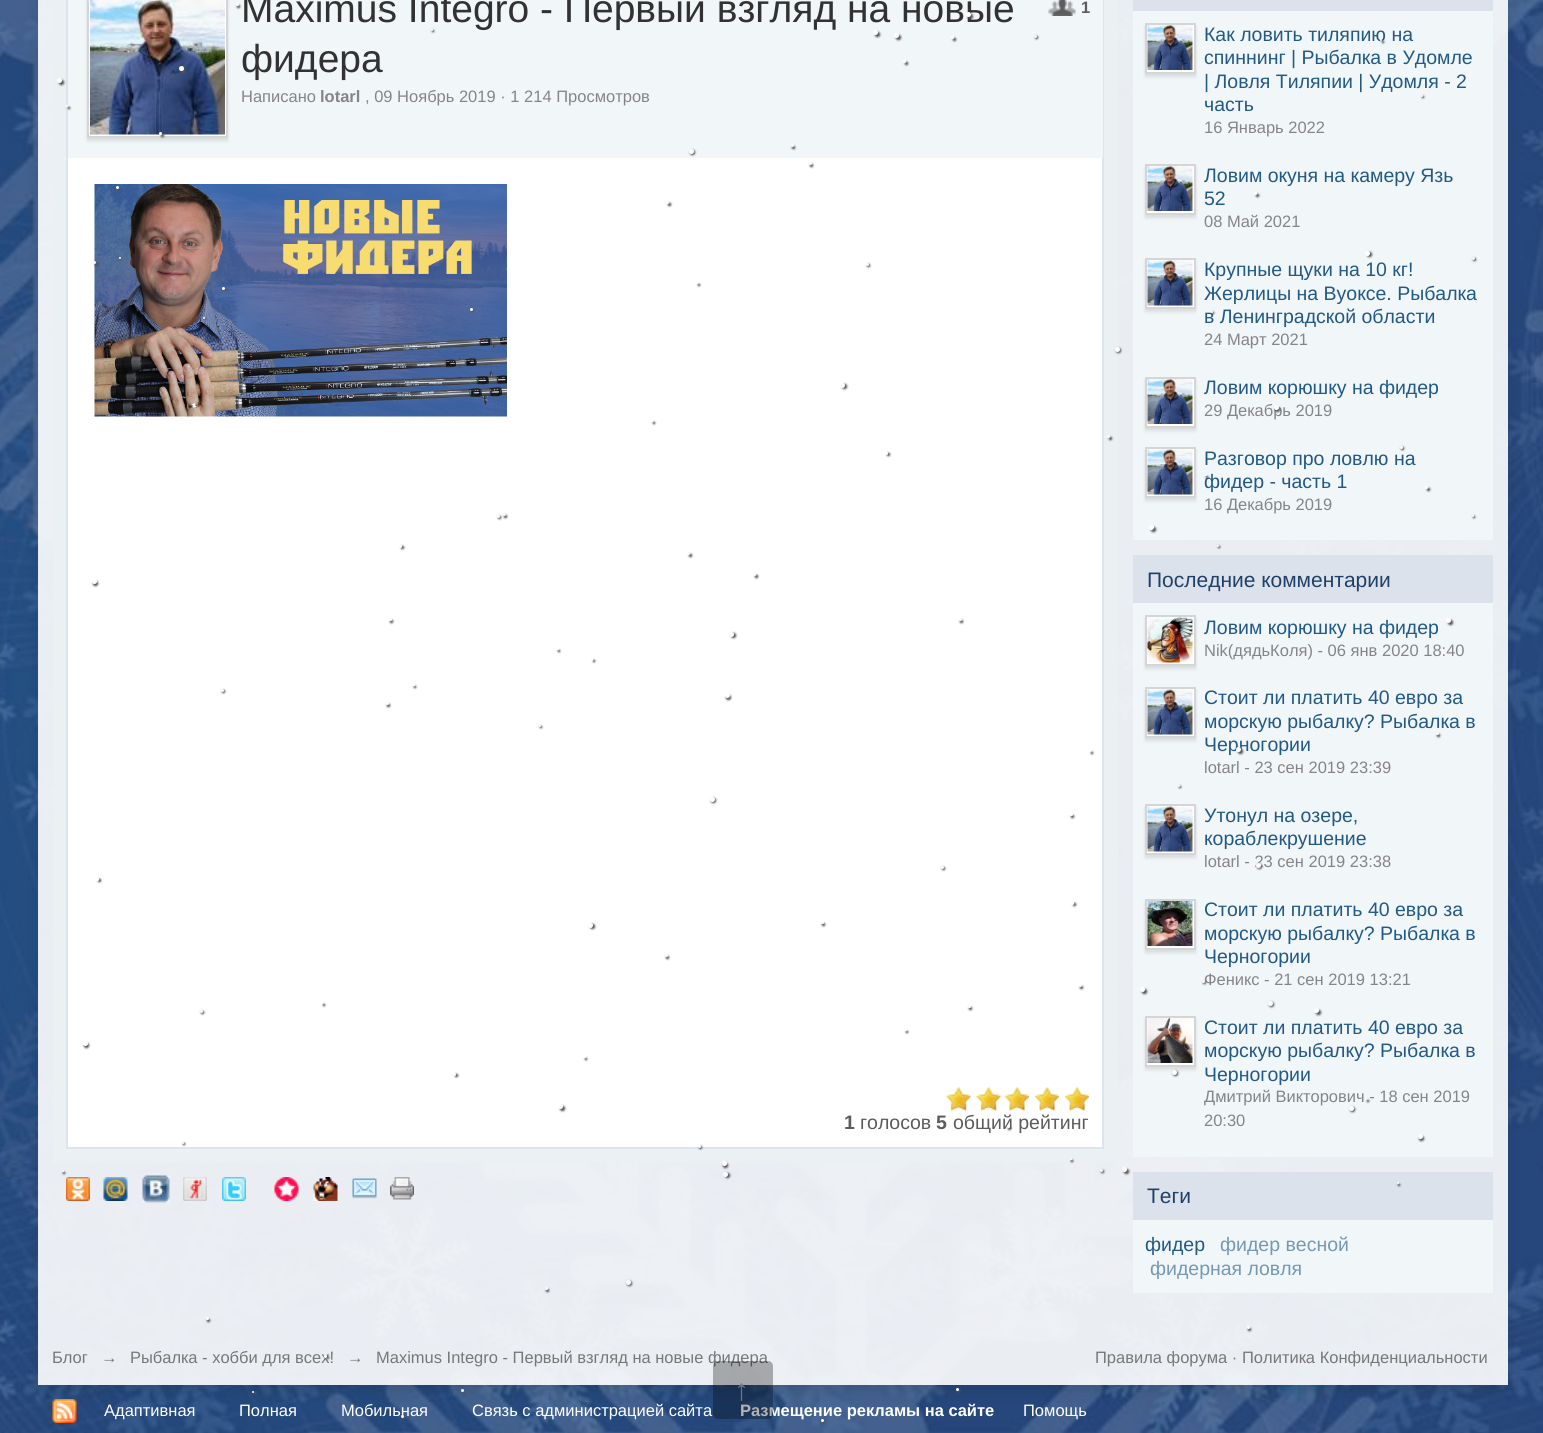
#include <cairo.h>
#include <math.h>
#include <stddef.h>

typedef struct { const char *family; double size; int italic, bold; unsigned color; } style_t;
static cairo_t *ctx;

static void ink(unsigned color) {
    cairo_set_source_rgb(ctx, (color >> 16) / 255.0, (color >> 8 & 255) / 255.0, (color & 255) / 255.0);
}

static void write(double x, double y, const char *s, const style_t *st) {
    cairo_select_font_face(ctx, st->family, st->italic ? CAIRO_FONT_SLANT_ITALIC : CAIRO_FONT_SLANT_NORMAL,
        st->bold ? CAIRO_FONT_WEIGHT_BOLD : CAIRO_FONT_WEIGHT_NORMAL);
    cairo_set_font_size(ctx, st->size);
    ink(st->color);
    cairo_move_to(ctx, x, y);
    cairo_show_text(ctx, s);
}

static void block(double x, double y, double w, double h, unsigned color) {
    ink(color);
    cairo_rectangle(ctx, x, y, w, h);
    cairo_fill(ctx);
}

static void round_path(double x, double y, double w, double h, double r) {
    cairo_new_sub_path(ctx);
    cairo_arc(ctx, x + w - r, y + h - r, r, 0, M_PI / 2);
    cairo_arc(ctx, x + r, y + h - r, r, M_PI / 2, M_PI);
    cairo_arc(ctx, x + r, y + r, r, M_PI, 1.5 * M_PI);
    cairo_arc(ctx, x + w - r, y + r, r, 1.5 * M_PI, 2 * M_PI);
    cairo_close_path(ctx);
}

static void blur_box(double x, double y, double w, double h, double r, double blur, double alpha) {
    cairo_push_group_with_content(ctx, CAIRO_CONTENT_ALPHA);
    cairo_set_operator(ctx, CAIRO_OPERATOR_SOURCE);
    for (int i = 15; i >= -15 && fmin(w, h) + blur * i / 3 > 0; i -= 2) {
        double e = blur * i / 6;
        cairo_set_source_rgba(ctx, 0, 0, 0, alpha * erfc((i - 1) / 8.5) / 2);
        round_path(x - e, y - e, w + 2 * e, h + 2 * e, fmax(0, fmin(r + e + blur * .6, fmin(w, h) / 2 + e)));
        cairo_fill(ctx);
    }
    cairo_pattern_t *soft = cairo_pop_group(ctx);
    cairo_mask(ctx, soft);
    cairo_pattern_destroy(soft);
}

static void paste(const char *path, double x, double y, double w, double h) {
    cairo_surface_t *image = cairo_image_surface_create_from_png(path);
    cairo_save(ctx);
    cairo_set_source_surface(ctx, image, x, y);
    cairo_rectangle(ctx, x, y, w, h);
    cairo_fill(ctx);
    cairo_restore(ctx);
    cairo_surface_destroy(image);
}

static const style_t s1 = {"Liberation Sans", 39, 0, 0, 0x323232};
static const style_t s2 = {"Liberation Sans", 16.5, 0, 1, 0x5c5c5c};
static const style_t s3 = {"Liberation Sans", 16.5, 0, 0, 0x858585};
static const style_t s4 = {"Liberation Sans", 16.5, 0, 1, 0x858585};
static const style_t s5 = {"Liberation Sans", 19.5, 0, 1, 0x5c5c5c};
static const style_t s6 = {"Liberation Sans", 19.5, 0, 0, 0x5c5c5c};
static const style_t s7 = {"Liberation Sans", 19.5, 0, 0, 0x225985};
static const style_t s8 = {"Liberation Sans", 21, 0, 0, 0x204066};
static const style_t s9 = {"Liberation Sans", 19.5, 0, 0, 0x7598b3};
static const style_t s10 = {"Liberation Sans", 16.5, 0, 0, 0x777777};
static const style_t s11 = {"Liberation Sans", 16.5, 0, 1, 0xffffff};
static const style_t s12 = {"Liberation Sans", 30, 0, 0, 0x68778d};
static const style_t s13 = {"Liberation Sans", 16.5, 0, 0, 0xffffff};

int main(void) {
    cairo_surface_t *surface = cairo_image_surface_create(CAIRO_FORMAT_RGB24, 1543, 1433);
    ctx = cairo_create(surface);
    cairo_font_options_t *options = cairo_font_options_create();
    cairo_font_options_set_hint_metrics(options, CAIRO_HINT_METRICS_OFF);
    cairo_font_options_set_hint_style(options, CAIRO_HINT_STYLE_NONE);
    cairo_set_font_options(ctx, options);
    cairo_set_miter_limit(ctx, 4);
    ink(0xffffff);
    cairo_paint(ctx);
    paste("pic1.png", 0, 0, 1543, 1433);
    cairo_save(ctx);
    cairo_set_fill_rule(ctx, CAIRO_FILL_RULE_EVEN_ODD);
    cairo_new_path(ctx);
    cairo_move_to(ctx, 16, 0);
    cairo_line_to(ctx, 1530, 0);
    cairo_line_to(ctx, 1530, 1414);
    cairo_line_to(ctx, 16, 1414);
    cairo_close_path(ctx);
    cairo_move_to(ctx, 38, -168);
    cairo_line_to(ctx, 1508, -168);
    cairo_line_to(ctx, 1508, 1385);
    cairo_line_to(ctx, 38, 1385);
    cairo_close_path(ctx);
    cairo_clip(ctx);
    ink(0x000000);
    blur_box(38, -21, 1470, 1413, 0, 7, 0.1);
    cairo_restore(ctx);
    cairo_set_source_rgba(ctx, 1, 1, 1, 0.9);
    cairo_rectangle(ctx, 38, 0, 1470, 1385);
    cairo_fill(ctx);
    block(53, 0, 1065, 1163, 0xebf0f3);
    block(68, 158, 1034, 989, 0xffffff);
    cairo_rectangle(ctx, 67, -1, 1036, 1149);
    ink(0xdbe4ef);
    cairo_stroke(ctx);
    block(68, 0, 1035, 158, 0xf1f6f9);
    ink(0x000000);
    blur_box(87, 0, 141, 141, 0, 1.5, 0.1);
    ink(0xffffff);
    cairo_rectangle(ctx, 88, -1, 139, 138);
    cairo_fill_preserve(ctx);
    ink(0xd5d5d5);
    cairo_stroke(ctx);
    paste("pic2.png", 90, 0, 135, 135);
    write(241, 22, "Maximus Integro - Первый взгляд на новые", &s1);
    write(241, 72, "фидера", &s1);
    paste("pic3.png", 1048, 0, 28, 16);
    write(1081, 13, "1", &s2);
    write(241, 102, "Написано", &s3);
    write(320, 102, "lotarl", &s4);
    write(365, 102, ", 09 Ноябрь 2019 · 1 214 Просмотров", &s3);
    paste("pic4.png", 94, 184, 413, 233);
    paste("pic5.png", 946, 1087, 25, 24);
    paste("pic5.png", 976, 1087, 25, 24);
    paste("pic6.png", 1005, 1087, 24, 24);
    paste("pic7.png", 1035, 1087, 24, 24);
    paste("pic8.png", 1065, 1087, 24, 24);
    write(844, 1129, "1", &s5);
    write(860, 1129, "голосов", &s6);
    write(936, 1129, "5", &s5);
    write(953, 1129, "общий рейтинг", &s6);
    paste("pic9.png", 66, 1177, 24, 24);
    paste("pic10.png", 103, 1177, 25, 24);
    paste("pic11.png", 142, 1175, 28, 28);
    paste("pic12.png", 183, 1177, 24, 24);
    paste("pic13.png", 222, 1177, 24, 24);
    paste("pic14.png", 274, 1177, 25, 24);
    paste("pic15.png", 313, 1177, 25, 24);
    paste("pic16.png", 352, 1178, 25, 21);
    paste("pic17.png", 390, 1177, 24, 23);
    block(1133, 0, 360, 11, 0xdbe2ec);
    block(1133, 11, 360, 529, 0xf1f6f9);
    ink(0x000000);
    blur_box(1145, 26, 51, 51, 0, 1.5, 0.1);
    ink(0xffffff);
    cairo_rectangle(ctx, 1146, 24, 49, 49);
    cairo_fill_preserve(ctx);
    ink(0xd5d5d5);
    cairo_stroke(ctx);
    paste("pic18.png", 1147, 25, 46, 45);
    write(1204, 41, "Как ловить тиляпию на", &s7);
    write(1204, 64, "спиннинг | Рыбалка в Удомле", &s7);
    write(1204, 88, "| Ловля Тиляпии | Удомля - 2", &s7);
    write(1204, 111, "часть", &s7);
    write(1204, 133, "16 Январь 2022", &s3);
    ink(0x000000);
    blur_box(1145, 167, 51, 51, 0, 1.5, 0.1);
    ink(0xffffff);
    cairo_rectangle(ctx, 1146, 165, 49, 49);
    cairo_fill_preserve(ctx);
    ink(0xd5d5d5);
    cairo_stroke(ctx);
    paste("pic18.png", 1147, 166, 46, 45);
    write(1204, 182, "Ловим окуня на камеру Язь", &s7);
    write(1204, 205, "52", &s7);
    write(1204, 227, "08 Май 2021", &s3);
    ink(0x000000);
    blur_box(1145, 261, 51, 51, 0, 1.5, 0.1);
    ink(0xffffff);
    cairo_rectangle(ctx, 1146, 259, 49, 49);
    cairo_fill_preserve(ctx);
    ink(0xd5d5d5);
    cairo_stroke(ctx);
    paste("pic19.png", 1147, 260, 46, 46);
    write(1204, 276, "Крупные щуки на 10 кг!", &s7);
    write(1204, 300, "Жерлицы на Вуоксе. Рыбалка", &s7);
    write(1204, 323, "в Ленинградской области", &s7);
    write(1204, 345, "24 Март 2021", &s3);
    ink(0x000000);
    blur_box(1145, 380, 51, 51, 0, 1.5, 0.1);
    ink(0xffffff);
    cairo_rectangle(ctx, 1146, 378, 49, 49);
    cairo_fill_preserve(ctx);
    ink(0xd5d5d5);
    cairo_stroke(ctx);
    paste("pic18.png", 1147, 379, 46, 45);
    write(1204, 394, "Ловим корюшку на фидер", &s7);
    write(1204, 416, "29 Декабрь 2019", &s3);
    ink(0x000000);
    blur_box(1145, 450, 51, 51, 0, 1.5, 0.1);
    ink(0xffffff);
    cairo_rectangle(ctx, 1146, 448, 49, 49);
    cairo_fill_preserve(ctx);
    ink(0xd5d5d5);
    cairo_stroke(ctx);
    paste("pic19.png", 1147, 449, 46, 46);
    write(1204, 465, "Разговор про ловлю на", &s7);
    write(1204, 488, "фидер - часть 1", &s7);
    write(1204, 510, "16 Декабрь 2019", &s3);
    block(1133, 555, 360, 48, 0xdbe2ec);
    write(1147, 587, "Последние комментарии", &s8);
    block(1133, 603, 360, 554, 0xf1f6f9);
    ink(0x000000);
    blur_box(1145, 618, 51, 51, 0, 1.5, 0.1);
    ink(0xffffff);
    cairo_rectangle(ctx, 1146, 616, 49, 49);
    cairo_fill_preserve(ctx);
    ink(0xd5d5d5);
    cairo_stroke(ctx);
    paste("pic20.png", 1147, 617, 46, 46);
    write(1204, 634, "Ловим корюшку на фидер", &s7);
    write(1204, 656, "Nik(дядьКоля) - 06 янв 2020 18:40", &s3);
    ink(0x000000);
    blur_box(1145, 690, 51, 51, 0, 1.5, 0.1);
    ink(0xffffff);
    cairo_rectangle(ctx, 1146, 688, 49, 49);
    cairo_fill_preserve(ctx);
    ink(0xd5d5d5);
    cairo_stroke(ctx);
    paste("pic19.png", 1147, 689, 46, 46);
    write(1204, 704, "Стоит ли платить 40 евро за", &s7);
    write(1204, 728, "морскую рыбалку? Рыбалка в", &s7);
    write(1204, 751, "Черногории", &s7);
    write(1204, 773, "lotarl - 23 сен 2019 23:39", &s3);
    ink(0x000000);
    blur_box(1145, 807, 51, 51, 0, 1.5, 0.1);
    ink(0xffffff);
    cairo_rectangle(ctx, 1146, 805, 49, 49);
    cairo_fill_preserve(ctx);
    ink(0xd5d5d5);
    cairo_stroke(ctx);
    paste("pic21.png", 1147, 806, 46, 46);
    write(1204, 822, "Утонул на озере,", &s7);
    write(1204, 845, "кораблекрушение", &s7);
    write(1204, 867, "lotarl - 23 сен 2019 23:38", &s3);
    ink(0x000000);
    blur_box(1145, 902, 51, 51, 0, 1.5, 0.1);
    ink(0xffffff);
    cairo_rectangle(ctx, 1146, 900, 49, 49);
    cairo_fill_preserve(ctx);
    ink(0xd5d5d5);
    cairo_stroke(ctx);
    paste("pic22.png", 1147, 901, 46, 45);
    write(1204, 916, "Стоит ли платить 40 евро за", &s7);
    write(1204, 940, "морскую рыбалку? Рыбалка в", &s7);
    write(1204, 963, "Черногории", &s7);
    write(1204, 985, "Феникс - 21 сен 2019 13:21", &s3);
    ink(0x000000);
    blur_box(1145, 1019, 51, 51, 0, 1.5, 0.1);
    ink(0xffffff);
    cairo_rectangle(ctx, 1146, 1017, 49, 49);
    cairo_fill_preserve(ctx);
    ink(0xd5d5d5);
    cairo_stroke(ctx);
    paste("pic23.png", 1147, 1018, 46, 45);
    write(1204, 1034, "Стоит ли платить 40 евро за", &s7);
    write(1204, 1057, "морскую рыбалку? Рыбалка в", &s7);
    write(1204, 1081, "Черногории", &s7);
    write(1204, 1102, "Дмитрий Викторович - 18 сен 2019", &s3);
    write(1204, 1126, "20:30", &s3);
    block(1133, 1172, 360, 48, 0xdbe2ec);
    write(1147, 1203, "Теги", &s8);
    block(1133, 1220, 360, 73, 0xf1f6f9);
    write(1145, 1251, "фидер", &s7);
    write(1220, 1251, "фидер весной", &s9);
    write(1150, 1275, "фидерная ловля", &s9);
    write(52, 1363, "Блог", &s10);
    write(101, 1363, "→", &s10);
    write(130, 1363, "Рыбалка - хобби для всех!", &s10);
    write(347, 1363, "→", &s10);
    write(376, 1363, "Maximus Integro - Первый взгляд на новые фидера", &s10);
    write(1095, 1363, "Правила форума ·", &s10);
    write(1242, 1363, "Политика Конфиденциальности", &s10);
    write(740, 1416, "Размещение рекламы на сайте", &s11);
    cairo_set_source_rgba(ctx, 0, 0, 0, 0.3);
    round_path(713, 1361, 60, 58, 5);
    cairo_fill(ctx);
    write(734, 1400, "↑", &s12);
    paste("pic24.png", 52, 1399, 25, 24);
    write(104, 1416, "Адаптивная", &s13);
    write(239, 1416, "Полная", &s13);
    write(341, 1416, "Мобильная", &s13);
    write(472, 1416, "Связь с администрацией сайта", &s13);
    write(1023, 1416, "Помощь", &s13);
    ink(0x555555);
    blur_box(237, 5, 3, 3, 1.5, 1, 1);
    ink(0xffffff);
    cairo_arc(ctx, 237.5, 4.5, 1.5, 0, 2 * M_PI);
    cairo_fill(ctx);
    ink(0x555555);
    blur_box(380, 9, 2, 2, 1, 1, 1);
    ink(0xffffff);
    cairo_arc(ctx, 379, 9, 1, 0, 2 * M_PI);
    cairo_fill(ctx);
    ink(0x555555);
    blur_box(968, 14, 5, 5, 2.5, 1, 1);
    ink(0xffffff);
    cairo_arc(ctx, 968.5, 14.5, 2.5, 0, 2 * M_PI);
    cairo_fill(ctx);
    ink(0x555555);
    blur_box(432, 30, 2, 2, 1, 1, 1);
    ink(0xffffff);
    cairo_arc(ctx, 432, 30, 1, 0, 2 * M_PI);
    cairo_fill(ctx);
    ink(0x555555);
    blur_box(875, 32, 5, 5, 2.5, 1, 1);
    ink(0xffffff);
    cairo_arc(ctx, 875.5, 32.5, 2.5, 0, 2 * M_PI);
    cairo_fill(ctx);
    ink(0x555555);
    blur_box(896, 35, 5, 5, 2.5, 1, 1);
    ink(0xffffff);
    cairo_arc(ctx, 896.5, 35.5, 2.5, 0, 2 * M_PI);
    cairo_fill(ctx);
    ink(0x555555);
    blur_box(953, 38, 3, 3, 1.5, 1, 1);
    ink(0xffffff);
    cairo_arc(ctx, 952.5, 37.5, 1.5, 0, 2 * M_PI);
    cairo_fill(ctx);
    ink(0x555555);
    blur_box(1035, 36, 3, 3, 1.5, 1, 1);
    ink(0xffffff);
    cairo_arc(ctx, 1035.5, 36.5, 1.5, 0, 2 * M_PI);
    cairo_fill(ctx);
    ink(0x555555);
    blur_box(1382, 41, 2, 2, 1, 1, 1);
    ink(0xffffff);
    cairo_arc(ctx, 1381, 40, 1, 0, 2 * M_PI);
    cairo_fill(ctx);
    ink(0x555555);
    blur_box(180, 68, 5, 5, 2.5, 1, 1);
    ink(0xffffff);
    cairo_arc(ctx, 181.5, 68.5, 2.5, 0, 2 * M_PI);
    cairo_fill(ctx);
    ink(0x555555);
    blur_box(905, 62, 3, 3, 1.5, 1, 1);
    ink(0xffffff);
    cairo_arc(ctx, 904.5, 61.5, 1.5, 0, 2 * M_PI);
    cairo_fill(ctx);
    ink(0x555555);
    blur_box(59, 80, 5, 5, 2.5, 1, 1);
    ink(0xffffff);
    cairo_arc(ctx, 59.5, 80.5, 2.5, 0, 2 * M_PI);
    cairo_fill(ctx);
    ink(0x555555);
    blur_box(1422, 96, 2, 2, 1, 1, 1);
    ink(0xffffff);
    cairo_arc(ctx, 1422, 96, 1, 0, 2 * M_PI);
    cairo_fill(ctx);
    ink(0x555555);
    blur_box(68, 107, 2, 2, 1, 1, 1);
    ink(0xffffff);
    cairo_arc(ctx, 67, 106, 1, 0, 2 * M_PI);
    cairo_fill(ctx);
    ink(0x555555);
    blur_box(161, 134, 3, 3, 1.5, 1, 1);
    ink(0xffffff);
    cairo_arc(ctx, 160.5, 133.5, 1.5, 0, 2 * M_PI);
    cairo_fill(ctx);
    ink(0x555555);
    blur_box(690, 150, 5, 5, 2.5, 1, 1);
    ink(0xffffff);
    cairo_arc(ctx, 691.5, 151.5, 2.5, 0, 2 * M_PI);
    cairo_fill(ctx);
    ink(0x555555);
    blur_box(792, 146, 3, 3, 1.5, 1, 1);
    ink(0xffffff);
    cairo_arc(ctx, 792.5, 145.5, 1.5, 0, 2 * M_PI);
    cairo_fill(ctx);
    ink(0x555555);
    blur_box(810, 164, 3, 3, 1.5, 1, 1);
    ink(0xffffff);
    cairo_arc(ctx, 810.5, 163.5, 1.5, 0, 2 * M_PI);
    cairo_fill(ctx);
    ink(0x555555);
    blur_box(117, 188, 3, 3, 1.5, 1, 1);
    ink(0xffffff);
    cairo_arc(ctx, 117.5, 187.5, 1.5, 0, 2 * M_PI);
    cairo_fill(ctx);
    ink(0x555555);
    blur_box(1256, 194, 3, 3, 1.5, 1, 1);
    ink(0xffffff);
    cairo_arc(ctx, 1255.5, 193.5, 1.5, 0, 2 * M_PI);
    cairo_fill(ctx);
    ink(0x555555);
    blur_box(668, 203, 3, 3, 1.5, 1, 1);
    ink(0xffffff);
    cairo_arc(ctx, 667.5, 202.5, 1.5, 0, 2 * M_PI);
    cairo_fill(ctx);
    ink(0x555555);
    blur_box(95, 263, 3, 3, 1.5, 1, 1);
    ink(0xffffff);
    cairo_arc(ctx, 94.5, 262.5, 1.5, 0, 2 * M_PI);
    cairo_fill(ctx);
    ink(0x555555);
    blur_box(120, 258, 2, 2, 1, 1, 1);
    ink(0xffffff);
    cairo_arc(ctx, 120, 258, 1, 0, 2 * M_PI);
    cairo_fill(ctx);
    ink(0x555555);
    blur_box(867, 264, 3, 3, 1.5, 1, 1);
    ink(0xffffff);
    cairo_arc(ctx, 867.5, 264.5, 1.5, 0, 2 * M_PI);
    cairo_fill(ctx);
    ink(0x555555);
    blur_box(1367, 252, 5, 5, 2.5, 1, 1);
    ink(0xffffff);
    cairo_arc(ctx, 1367.5, 253.5, 2.5, 0, 2 * M_PI);
    cairo_fill(ctx);
    ink(0x555555);
    blur_box(1473, 258, 3, 3, 1.5, 1, 1);
    ink(0xffffff);
    cairo_arc(ctx, 1473.5, 258.5, 1.5, 0, 2 * M_PI);
    cairo_fill(ctx);
    ink(0x555555);
    blur_box(224, 288, 3, 3, 1.5, 1, 1);
    ink(0xffffff);
    cairo_arc(ctx, 223.5, 288.5, 1.5, 0, 2 * M_PI);
    cairo_fill(ctx);
    ink(0x555555);
    blur_box(698, 284, 2, 2, 1, 1, 1);
    ink(0xffffff);
    cairo_arc(ctx, 697, 283, 1, 0, 2 * M_PI);
    cairo_fill(ctx);
    ink(0x555555);
    blur_box(471, 309, 3, 3, 1.5, 1, 1);
    ink(0xffffff);
    cairo_arc(ctx, 471.5, 309.5, 1.5, 0, 2 * M_PI);
    cairo_fill(ctx);
    ink(0x555555);
    blur_box(1212, 312, 2, 2, 1, 1, 1);
    ink(0xffffff);
    cairo_arc(ctx, 1212, 312, 1, 0, 2 * M_PI);
    cairo_fill(ctx);
    ink(0x555555);
    blur_box(204, 318, 2, 2, 1, 1, 1);
    ink(0xffffff);
    cairo_arc(ctx, 204, 318, 1, 0, 2 * M_PI);
    cairo_fill(ctx);
    ink(0x555555);
    blur_box(1116, 348, 5, 5, 2.5, 1, 1);
    ink(0xffffff);
    cairo_arc(ctx, 1117.5, 349.5, 2.5, 0, 2 * M_PI);
    cairo_fill(ctx);
    ink(0x555555);
    blur_box(842, 384, 5, 5, 2.5, 1, 1);
    ink(0xffffff);
    cairo_arc(ctx, 842.5, 385.5, 2.5, 0, 2 * M_PI);
    cairo_fill(ctx);
    ink(0x555555);
    blur_box(1275, 407, 5, 5, 2.5, 1, 1);
    ink(0xffffff);
    cairo_arc(ctx, 1276.5, 407.5, 2.5, 0, 2 * M_PI);
    cairo_fill(ctx);
    ink(0x555555);
    blur_box(653, 422, 2, 2, 1, 1, 1);
    ink(0xffffff);
    cairo_arc(ctx, 652, 421, 1, 0, 2 * M_PI);
    cairo_fill(ctx);
    ink(0x555555);
    blur_box(1109, 437, 3, 3, 1.5, 1, 1);
    ink(0xffffff);
    cairo_arc(ctx, 1108.5, 436.5, 1.5, 0, 2 * M_PI);
    cairo_fill(ctx);
    ink(0x555555);
    blur_box(887, 453, 3, 3, 1.5, 1, 1);
    ink(0xffffff);
    cairo_arc(ctx, 886.5, 453.5, 1.5, 0, 2 * M_PI);
    cairo_fill(ctx);
    ink(0x555555);
    blur_box(1401, 447, 3, 3, 1.5, 1, 1);
    ink(0xffffff);
    cairo_arc(ctx, 1401.5, 447.5, 1.5, 0, 2 * M_PI);
    cairo_fill(ctx);
    ink(0x555555);
    blur_box(1206, 476, 2, 2, 1, 1, 1);
    ink(0xffffff);
    cairo_arc(ctx, 1206, 475, 1, 0, 2 * M_PI);
    cairo_fill(ctx);
    ink(0x555555);
    blur_box(1427, 488, 3, 3, 1.5, 1, 1);
    ink(0xffffff);
    cairo_arc(ctx, 1426.5, 487.5, 1.5, 0, 2 * M_PI);
    cairo_fill(ctx);
    ink(0x555555);
    blur_box(498, 516, 3, 3, 1.5, 1, 1);
    ink(0xffffff);
    cairo_arc(ctx, 498.5, 516.5, 1.5, 0, 2 * M_PI);
    cairo_fill(ctx);
    ink(0x555555);
    blur_box(504, 515, 3, 3, 1.5, 1, 1);
    ink(0xffffff);
    cairo_arc(ctx, 504.5, 514.5, 1.5, 0, 2 * M_PI);
    cairo_fill(ctx);
    ink(0x555555);
    blur_box(1473, 516, 2, 2, 1, 1, 1);
    ink(0xffffff);
    cairo_arc(ctx, 1473, 516, 1, 0, 2 * M_PI);
    cairo_fill(ctx);
    ink(0x555555);
    blur_box(1151, 527, 5, 5, 2.5, 1, 1);
    ink(0xffffff);
    cairo_arc(ctx, 1151.5, 527.5, 2.5, 0, 2 * M_PI);
    cairo_fill(ctx);
    ink(0x555555);
    blur_box(401, 546, 3, 3, 1.5, 1, 1);
    ink(0xffffff);
    cairo_arc(ctx, 400.5, 546.5, 1.5, 0, 2 * M_PI);
    cairo_fill(ctx);
    ink(0x555555);
    blur_box(1218, 546, 2, 2, 1, 1, 1);
    ink(0xffffff);
    cairo_arc(ctx, 1218, 546, 1, 0, 2 * M_PI);
    cairo_fill(ctx);
    ink(0x555555);
    blur_box(689, 554, 3, 3, 1.5, 1, 1);
    ink(0xffffff);
    cairo_arc(ctx, 688.5, 553.5, 1.5, 0, 2 * M_PI);
    cairo_fill(ctx);
    ink(0x555555);
    blur_box(93, 581, 5, 5, 2.5, 1, 1);
    ink(0xffffff);
    cairo_arc(ctx, 94.5, 581.5, 2.5, 0, 2 * M_PI);
    cairo_fill(ctx);
    ink(0x555555);
    blur_box(755, 575, 3, 3, 1.5, 1, 1);
    ink(0xffffff);
    cairo_arc(ctx, 754.5, 574.5, 1.5, 0, 2 * M_PI);
    cairo_fill(ctx);
    ink(0x555555);
    blur_box(390, 620, 3, 3, 1.5, 1, 1);
    ink(0xffffff);
    cairo_arc(ctx, 390.5, 619.5, 1.5, 0, 2 * M_PI);
    cairo_fill(ctx);
    ink(0x555555);
    blur_box(960, 620, 3, 3, 1.5, 1, 1);
    ink(0xffffff);
    cairo_arc(ctx, 960.5, 619.5, 1.5, 0, 2 * M_PI);
    cairo_fill(ctx);
    ink(0x555555);
    blur_box(1448, 620, 5, 5, 2.5, 1, 1);
    ink(0xffffff);
    cairo_arc(ctx, 1448.5, 620.5, 2.5, 0, 2 * M_PI);
    cairo_fill(ctx);
    ink(0x555555);
    blur_box(731, 633, 5, 5, 2.5, 1, 1);
    ink(0xffffff);
    cairo_arc(ctx, 731.5, 634.5, 2.5, 0, 2 * M_PI);
    cairo_fill(ctx);
    ink(0x555555);
    blur_box(558, 650, 2, 2, 1, 1, 1);
    ink(0xffffff);
    cairo_arc(ctx, 558, 649, 1, 0, 2 * M_PI);
    cairo_fill(ctx);
    ink(0x555555);
    blur_box(593, 660, 2, 2, 1, 1, 1);
    ink(0xffffff);
    cairo_arc(ctx, 592, 660, 1, 0, 2 * M_PI);
    cairo_fill(ctx);
    ink(0x555555);
    blur_box(222, 690, 3, 3, 1.5, 1, 1);
    ink(0xffffff);
    cairo_arc(ctx, 222.5, 690.5, 1.5, 0, 2 * M_PI);
    cairo_fill(ctx);
    ink(0x555555);
    blur_box(414, 686, 2, 2, 1, 1, 1);
    ink(0xffffff);
    cairo_arc(ctx, 414, 685, 1, 0, 2 * M_PI);
    cairo_fill(ctx);
    ink(0x555555);
    blur_box(726, 695, 5, 5, 2.5, 1, 1);
    ink(0xffffff);
    cairo_arc(ctx, 727.5, 695.5, 2.5, 0, 2 * M_PI);
    cairo_fill(ctx);
    ink(0x555555);
    blur_box(387, 704, 3, 3, 1.5, 1, 1);
    ink(0xffffff);
    cairo_arc(ctx, 387.5, 703.5, 1.5, 0, 2 * M_PI);
    cairo_fill(ctx);
    ink(0x555555);
    blur_box(540, 726, 2, 2, 1, 1, 1);
    ink(0xffffff);
    cairo_arc(ctx, 540, 726, 1, 0, 2 * M_PI);
    cairo_fill(ctx);
    ink(0x555555);
    blur_box(1437, 734, 3, 3, 1.5, 1, 1);
    ink(0xffffff);
    cairo_arc(ctx, 1437.5, 733.5, 1.5, 0, 2 * M_PI);
    cairo_fill(ctx);
    ink(0x555555);
    blur_box(1091, 752, 2, 2, 1, 1, 1);
    ink(0xffffff);
    cairo_arc(ctx, 1090, 751, 1, 0, 2 * M_PI);
    cairo_fill(ctx);
    ink(0x555555);
    blur_box(1238, 749, 5, 5, 2.5, 1, 1);
    ink(0xffffff);
    cairo_arc(ctx, 1238.5, 749.5, 2.5, 0, 2 * M_PI);
    cairo_fill(ctx);
    ink(0x555555);
    blur_box(1179, 786, 2, 2, 1, 1, 1);
    ink(0xffffff);
    cairo_arc(ctx, 1179, 786, 1, 0, 2 * M_PI);
    cairo_fill(ctx);
    ink(0x555555);
    blur_box(711, 798, 5, 5, 2.5, 1, 1);
    ink(0xffffff);
    cairo_arc(ctx, 712.5, 799.5, 2.5, 0, 2 * M_PI);
    cairo_fill(ctx);
    ink(0x555555);
    blur_box(1071, 815, 3, 3, 1.5, 1, 1);
    ink(0xffffff);
    cairo_arc(ctx, 1071.5, 814.5, 1.5, 0, 2 * M_PI);
    cairo_fill(ctx);
    ink(0x555555);
    blur_box(942, 867, 3, 3, 1.5, 1, 1);
    ink(0xffffff);
    cairo_arc(ctx, 942.5, 867.5, 1.5, 0, 2 * M_PI);
    cairo_fill(ctx);
    ink(0x555555);
    blur_box(1257, 864, 5, 5, 2.5, 1, 1);
    ink(0xffffff);
    cairo_arc(ctx, 1258.5, 865.5, 2.5, 0, 2 * M_PI);
    cairo_fill(ctx);
    ink(0x555555);
    blur_box(98, 879, 3, 3, 1.5, 1, 1);
    ink(0xffffff);
    cairo_arc(ctx, 97.5, 879.5, 1.5, 0, 2 * M_PI);
    cairo_fill(ctx);
    ink(0x555555);
    blur_box(1073, 903, 3, 3, 1.5, 1, 1);
    ink(0xffffff);
    cairo_arc(ctx, 1072.5, 903.5, 1.5, 0, 2 * M_PI);
    cairo_fill(ctx);
    ink(0x555555);
    blur_box(590, 924, 5, 5, 2.5, 1, 1);
    ink(0xffffff);
    cairo_arc(ctx, 590.5, 925.5, 2.5, 0, 2 * M_PI);
    cairo_fill(ctx);
    ink(0x555555);
    blur_box(822, 923, 3, 3, 1.5, 1, 1);
    ink(0xffffff);
    cairo_arc(ctx, 822.5, 922.5, 1.5, 0, 2 * M_PI);
    cairo_fill(ctx);
    ink(0x555555);
    blur_box(666, 956, 3, 3, 1.5, 1, 1);
    ink(0xffffff);
    cairo_arc(ctx, 666.5, 955.5, 1.5, 0, 2 * M_PI);
    cairo_fill(ctx);
    ink(0x555555);
    blur_box(1080, 986, 3, 3, 1.5, 1, 1);
    ink(0xffffff);
    cairo_arc(ctx, 1080.5, 985.5, 1.5, 0, 2 * M_PI);
    cairo_fill(ctx);
    ink(0x555555);
    blur_box(1142, 989, 5, 5, 2.5, 1, 1);
    ink(0xffffff);
    cairo_arc(ctx, 1142.5, 989.5, 2.5, 0, 2 * M_PI);
    cairo_fill(ctx);
    ink(0x555555);
    blur_box(1203, 981, 3, 3, 1.5, 1, 1);
    ink(0xffffff);
    cairo_arc(ctx, 1203.5, 981.5, 1.5, 0, 2 * M_PI);
    cairo_fill(ctx);
    ink(0x555555);
    blur_box(201, 1011, 3, 3, 1.5, 1, 1);
    ink(0xffffff);
    cairo_arc(ctx, 201.5, 1011.5, 1.5, 0, 2 * M_PI);
    cairo_fill(ctx);
    ink(0x555555);
    blur_box(323, 1004, 2, 2, 1, 1, 1);
    ink(0xffffff);
    cairo_arc(ctx, 322, 1003, 1, 0, 2 * M_PI);
    cairo_fill(ctx);
    ink(0x555555);
    blur_box(969, 1007, 3, 3, 1.5, 1, 1);
    ink(0xffffff);
    cairo_arc(ctx, 969.5, 1006.5, 1.5, 0, 2 * M_PI);
    cairo_fill(ctx);
    ink(0x555555);
    blur_box(1269, 1002, 5, 5, 2.5, 1, 1);
    ink(0xffffff);
    cairo_arc(ctx, 1270.5, 1003.5, 2.5, 0, 2 * M_PI);
    cairo_fill(ctx);
    ink(0x555555);
    blur_box(1316, 1010, 5, 5, 2.5, 1, 1);
    ink(0xffffff);
    cairo_arc(ctx, 1316.5, 1010.5, 2.5, 0, 2 * M_PI);
    cairo_fill(ctx);
    ink(0x555555);
    blur_box(906, 1031, 2, 2, 1, 1, 1);
    ink(0xffffff);
    cairo_arc(ctx, 906, 1030, 1, 0, 2 * M_PI);
    cairo_fill(ctx);
    ink(0x555555);
    blur_box(84, 1043, 5, 5, 2.5, 1, 1);
    ink(0xffffff);
    cairo_arc(ctx, 85.5, 1043.5, 2.5, 0, 2 * M_PI);
    cairo_fill(ctx);
    ink(0x555555);
    blur_box(585, 1058, 2, 2, 1, 1, 1);
    ink(0xffffff);
    cairo_arc(ctx, 585, 1057, 1, 0, 2 * M_PI);
    cairo_fill(ctx);
    ink(0x555555);
    blur_box(455, 1074, 3, 3, 1.5, 1, 1);
    ink(0xffffff);
    cairo_arc(ctx, 454.5, 1074.5, 1.5, 0, 2 * M_PI);
    cairo_fill(ctx);
    ink(0x555555);
    blur_box(1173, 1071, 5, 5, 2.5, 1, 1);
    ink(0xffffff);
    cairo_arc(ctx, 1174.5, 1072.5, 2.5, 0, 2 * M_PI);
    cairo_fill(ctx);
    ink(0x555555);
    blur_box(1367, 1100, 2, 2, 1, 1, 1);
    ink(0xffffff);
    cairo_arc(ctx, 1366, 1099, 1, 0, 2 * M_PI);
    cairo_fill(ctx);
    ink(0x555555);
    blur_box(560, 1106, 5, 5, 2.5, 1, 1);
    ink(0xffffff);
    cairo_arc(ctx, 560.5, 1106.5, 2.5, 0, 2 * M_PI);
    cairo_fill(ctx);
    ink(0x555555);
    blur_box(1350, 1107, 5, 5, 2.5, 1, 1);
    ink(0xffffff);
    cairo_arc(ctx, 1351.5, 1108.5, 2.5, 0, 2 * M_PI);
    cairo_fill(ctx);
    ink(0x555555);
    blur_box(1008, 1127, 3, 3, 1.5, 1, 1);
    ink(0xffffff);
    cairo_arc(ctx, 1008.5, 1126.5, 1.5, 0, 2 * M_PI);
    cairo_fill(ctx);
    ink(0x555555);
    blur_box(183, 1143, 2, 2, 1, 1, 1);
    ink(0xffffff);
    cairo_arc(ctx, 183, 1143, 1, 0, 2 * M_PI);
    cairo_fill(ctx);
    ink(0x555555);
    blur_box(699, 1146, 3, 3, 1.5, 1, 1);
    ink(0xffffff);
    cairo_arc(ctx, 699.5, 1146.5, 1.5, 0, 2 * M_PI);
    cairo_fill(ctx);
    ink(0x555555);
    blur_box(1419, 1136, 5, 5, 2.5, 1, 1);
    ink(0xffffff);
    cairo_arc(ctx, 1420.5, 1136.5, 2.5, 0, 2 * M_PI);
    cairo_fill(ctx);
    ink(0x555555);
    blur_box(63, 1172, 2, 2, 1, 1, 1);
    ink(0xffffff);
    cairo_arc(ctx, 63, 1171, 1, 0, 2 * M_PI);
    cairo_fill(ctx);
    ink(0x555555);
    blur_box(723, 1163, 5, 5, 2.5, 1, 1);
    ink(0xffffff);
    cairo_arc(ctx, 724.5, 1163.5, 2.5, 0, 2 * M_PI);
    cairo_fill(ctx);
    ink(0x555555);
    blur_box(1071, 1160, 2, 2, 1, 1, 1);
    ink(0xffffff);
    cairo_arc(ctx, 1071, 1159, 1, 0, 2 * M_PI);
    cairo_fill(ctx);
    ink(0x555555);
    blur_box(1101, 1170, 3, 3, 1.5, 1, 1);
    ink(0xffffff);
    cairo_arc(ctx, 1101.5, 1170.5, 1.5, 0, 2 * M_PI);
    cairo_fill(ctx);
    ink(0x555555);
    blur_box(1124, 1169, 5, 5, 2.5, 1, 1);
    ink(0xffffff);
    cairo_arc(ctx, 1124.5, 1169.5, 2.5, 0, 2 * M_PI);
    cairo_fill(ctx);
    ink(0x555555);
    blur_box(725, 1173, 5, 5, 2.5, 1, 1);
    ink(0xffffff);
    cairo_arc(ctx, 725.5, 1174.5, 2.5, 0, 2 * M_PI);
    cairo_fill(ctx);
    ink(0x555555);
    blur_box(1398, 1184, 2, 2, 1, 1, 1);
    ink(0xffffff);
    cairo_arc(ctx, 1398, 1183, 1, 0, 2 * M_PI);
    cairo_fill(ctx);
    ink(0x555555);
    blur_box(546, 1289, 3, 3, 1.5, 1, 1);
    ink(0xffffff);
    cairo_arc(ctx, 546.5, 1288.5, 1.5, 0, 2 * M_PI);
    cairo_fill(ctx);
    ink(0x555555);
    blur_box(627, 1281, 5, 5, 2.5, 1, 1);
    ink(0xffffff);
    cairo_arc(ctx, 628.5, 1282.5, 2.5, 0, 2 * M_PI);
    cairo_fill(ctx);
    ink(0x555555);
    blur_box(207, 1319, 3, 3, 1.5, 1, 1);
    ink(0xffffff);
    cairo_arc(ctx, 207.5, 1318.5, 1.5, 0, 2 * M_PI);
    cairo_fill(ctx);
    ink(0x555555);
    blur_box(1248, 1328, 3, 3, 1.5, 1, 1);
    ink(0xffffff);
    cairo_arc(ctx, 1248.5, 1327.5, 1.5, 0, 2 * M_PI);
    cairo_fill(ctx);
    ink(0x555555);
    blur_box(326, 1356, 3, 3, 1.5, 1, 1);
    ink(0xffffff);
    cairo_arc(ctx, 325.5, 1356.5, 1.5, 0, 2 * M_PI);
    cairo_fill(ctx);
    ink(0x555555);
    blur_box(254, 1392, 2, 2, 1, 1, 1);
    ink(0xffffff);
    cairo_arc(ctx, 253, 1392, 1, 0, 2 * M_PI);
    cairo_fill(ctx);
    ink(0x555555);
    blur_box(462, 1391, 3, 3, 1.5, 1, 1);
    ink(0xffffff);
    cairo_arc(ctx, 462.5, 1390.5, 1.5, 0, 2 * M_PI);
    cairo_fill(ctx);
    ink(0x555555);
    blur_box(957, 1389, 3, 3, 1.5, 1, 1);
    ink(0xffffff);
    cairo_arc(ctx, 957.5, 1389.5, 1.5, 0, 2 * M_PI);
    cairo_fill(ctx);
    ink(0x555555);
    blur_box(402, 1416, 3, 3, 1.5, 1, 1);
    ink(0xffffff);
    cairo_arc(ctx, 402.5, 1416.5, 1.5, 0, 2 * M_PI);
    cairo_fill(ctx);
    ink(0x555555);
    blur_box(822, 1421, 3, 3, 1.5, 1, 1);
    ink(0xffffff);
    cairo_arc(ctx, 822.5, 1420.5, 1.5, 0, 2 * M_PI);
    cairo_fill(ctx);
    cairo_surface_write_to_png(surface, "screenshot.png");
    cairo_font_options_destroy(options);
    cairo_destroy(ctx);
    cairo_surface_destroy(surface);
    return 0;
}
